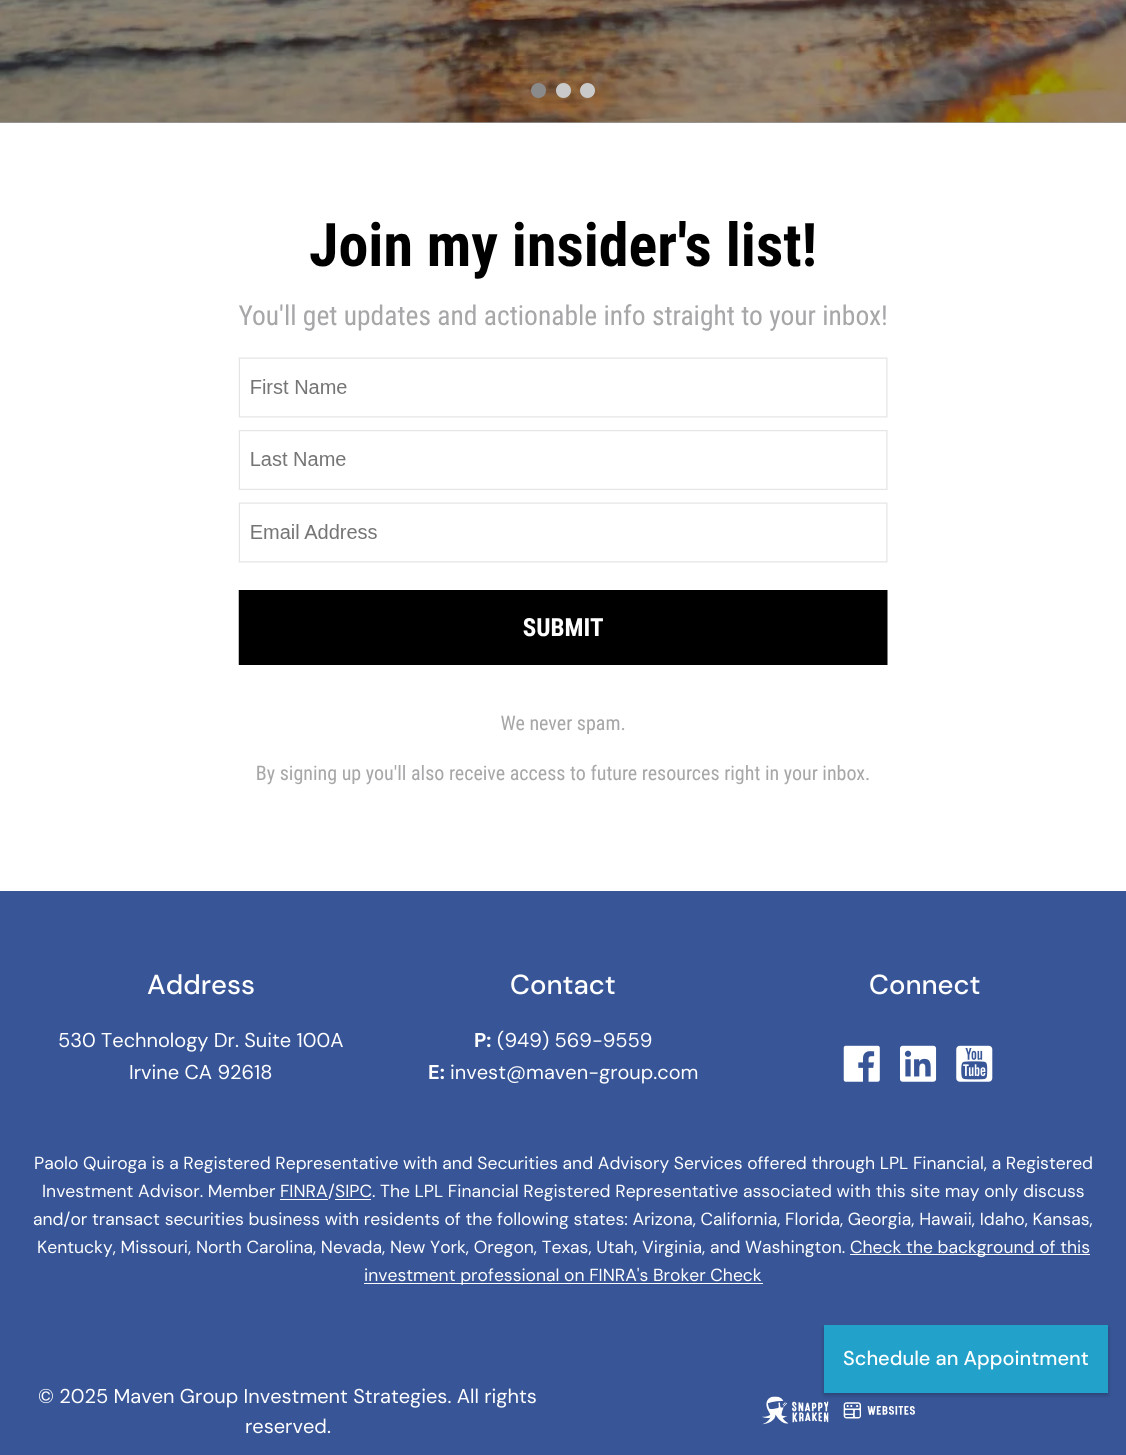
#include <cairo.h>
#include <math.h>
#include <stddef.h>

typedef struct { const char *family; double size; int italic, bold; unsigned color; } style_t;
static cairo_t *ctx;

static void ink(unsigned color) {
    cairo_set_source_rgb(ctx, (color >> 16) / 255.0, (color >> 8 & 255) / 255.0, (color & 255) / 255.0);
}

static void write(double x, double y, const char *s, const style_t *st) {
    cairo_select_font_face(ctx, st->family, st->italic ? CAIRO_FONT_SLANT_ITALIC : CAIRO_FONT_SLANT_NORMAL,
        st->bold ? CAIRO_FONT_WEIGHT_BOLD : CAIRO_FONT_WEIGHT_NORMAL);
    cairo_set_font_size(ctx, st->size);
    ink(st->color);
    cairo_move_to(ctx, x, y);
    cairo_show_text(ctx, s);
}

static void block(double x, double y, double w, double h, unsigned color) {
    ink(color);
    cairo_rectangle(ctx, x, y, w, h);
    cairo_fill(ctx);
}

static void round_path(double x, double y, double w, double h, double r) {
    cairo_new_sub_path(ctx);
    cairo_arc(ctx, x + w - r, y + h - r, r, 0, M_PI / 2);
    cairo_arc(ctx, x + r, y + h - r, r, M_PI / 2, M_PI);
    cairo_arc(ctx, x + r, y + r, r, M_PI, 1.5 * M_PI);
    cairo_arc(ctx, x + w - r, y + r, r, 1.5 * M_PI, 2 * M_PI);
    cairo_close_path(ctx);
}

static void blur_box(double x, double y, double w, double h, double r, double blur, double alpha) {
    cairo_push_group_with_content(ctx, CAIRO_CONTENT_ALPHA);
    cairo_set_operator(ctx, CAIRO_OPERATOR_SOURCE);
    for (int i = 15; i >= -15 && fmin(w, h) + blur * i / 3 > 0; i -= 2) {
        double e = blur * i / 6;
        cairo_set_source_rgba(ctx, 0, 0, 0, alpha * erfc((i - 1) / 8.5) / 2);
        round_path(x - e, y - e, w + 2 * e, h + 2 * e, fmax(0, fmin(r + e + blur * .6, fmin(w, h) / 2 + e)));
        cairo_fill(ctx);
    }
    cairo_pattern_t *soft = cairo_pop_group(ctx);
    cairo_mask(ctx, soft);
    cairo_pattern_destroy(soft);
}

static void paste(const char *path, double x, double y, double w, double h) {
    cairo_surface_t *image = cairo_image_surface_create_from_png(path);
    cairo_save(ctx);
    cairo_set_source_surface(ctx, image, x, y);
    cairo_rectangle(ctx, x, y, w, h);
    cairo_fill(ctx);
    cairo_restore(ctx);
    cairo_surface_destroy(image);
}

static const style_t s1 = {"DM Sans Medium", 27.5, 0, 0, 0xffffff};
static const style_t s2 = {"DM Sans", 20, 0, 0, 0xffffff};
static const style_t s3 = {"DM Sans", 20, 0, 1, 0xffffff};
static const style_t s4 = {"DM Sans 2", 17.5, 0, 0, 0xffffff};
static const style_t s5 = {"DM Sans 2 Medium", 20, 0, 0, 0xffffff};

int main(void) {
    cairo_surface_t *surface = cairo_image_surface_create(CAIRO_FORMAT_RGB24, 1126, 1455);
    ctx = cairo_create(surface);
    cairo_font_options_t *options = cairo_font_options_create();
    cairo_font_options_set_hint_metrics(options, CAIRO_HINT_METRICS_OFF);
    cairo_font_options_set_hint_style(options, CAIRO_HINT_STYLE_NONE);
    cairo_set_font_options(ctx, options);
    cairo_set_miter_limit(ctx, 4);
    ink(0xffffff);
    cairo_paint(ctx);
    block(0, 122, 1126, 1, 0x999999);
    block(0, 891, 1126, 564, 0x385697);
    paste("pic1.png", 0, 0, 1126, 123);
    ink(0x8a8a8a);
    cairo_arc(ctx, 538.5, 90.5, 7.5, 0, 2 * M_PI);
    cairo_fill(ctx);
    ink(0xcacaca);
    cairo_arc(ctx, 563.5, 90.5, 7.5, 0, 2 * M_PI);
    cairo_fill(ctx);
    cairo_arc(ctx, 587.5, 90.5, 7.5, 0, 2 * M_PI);
    cairo_fill(ctx);
    paste("pic2.png", 238, 221, 650, 564);
    write(147, 994, "Address", &s1);
    write(58, 1047, "530 Technology Dr. Suite 100A", &s2);
    write(129, 1079, "Irvine CA 92618", &s2);
    write(510, 994, "Contact", &s1);
    write(474, 1047, "P:", &s3);
    write(497, 1047, "(949) 569-9559", &s2);
    write(428, 1079, "E:", &s3);
    write(450, 1079, "invest@maven-group.com", &s2);
    write(869, 994, "Connect", &s1);
    paste("pic3.png", 843, 1045, 37, 37);
    paste("pic4.png", 900, 1045, 37, 37);
    paste("pic5.png", 956, 1045, 37, 37);
    write(34, 1169, "Paolo Quiroga is a Registered Representative with and Securities and Advisory Services offered through LPL Financial, a Registered", &s4);
    write(42, 1197, "Investment Advisor. Member", &s4);
    write(280, 1197, "FINRA", &s4);
    block(280, 1199, 48, 1, 0xfefefe);
    write(328, 1197, "/", &s4);
    write(335, 1197, "SIPC", &s4);
    block(335, 1199, 36, 1, 0xfefefe);
    write(372, 1197, ". The LPL Financial Registered Representative associated with this site may only discuss", &s4);
    write(33, 1225, "and/or transact securities business with residents of the following states: Arizona, California, Florida, Georgia, Hawaii, Idaho, Kansas,", &s4);
    write(37, 1253, "Kentucky, Missouri, North Carolina, Nevada, New York, Oregon, Texas, Utah, Virginia, and Washington.", &s4);
    block(850, 1254, 240, 1, 0xfefefe);
    write(850, 1253, "Check the background of this", &s4);
    block(364, 1283, 399, 1, 0xfefefe);
    write(364, 1281, "investment professional on FINRA's Broker Check", &s4);
    write(38, 1403, "© 2025 Maven Group Investment Strategies. All rights", &s2);
    write(245, 1433, "reserved.", &s2);
    paste("pic6.png", 762, 1396, 153, 29);
    ink(0x000000);
    blur_box(824, 1328, 284, 67, 0, 2.5, 0.25);
    block(824, 1325, 284, 68, 0x22a2cb);
    write(843, 1365, "Schedule an Appointment", &s5);
    cairo_surface_write_to_png(surface, "screenshot.png");
    cairo_font_options_destroy(options);
    cairo_destroy(ctx);
    cairo_surface_destroy(surface);
    return 0;
}
